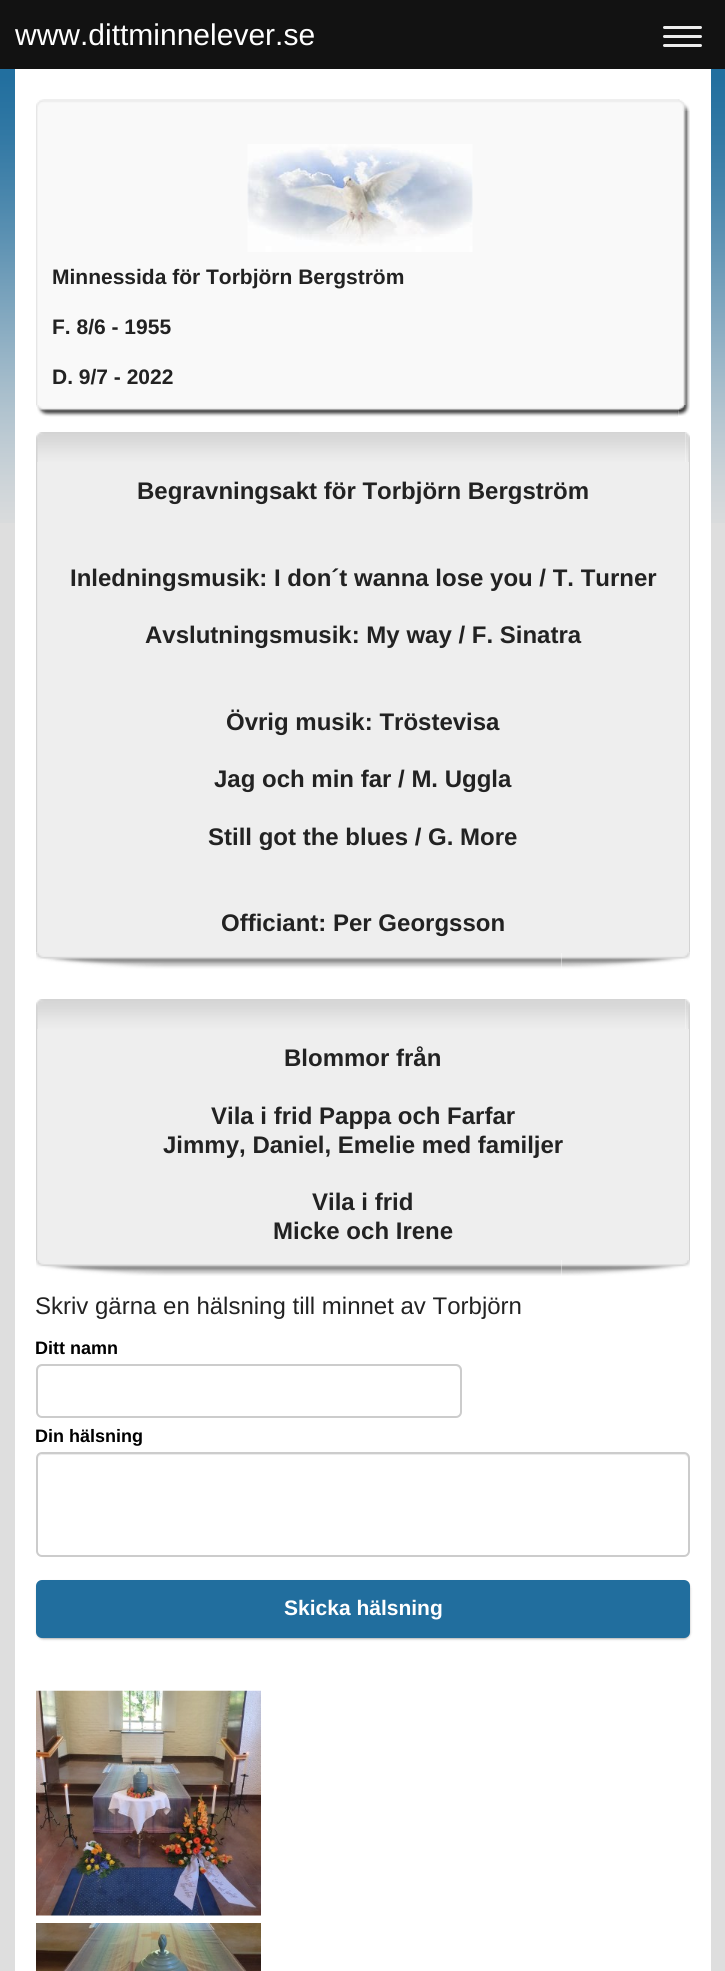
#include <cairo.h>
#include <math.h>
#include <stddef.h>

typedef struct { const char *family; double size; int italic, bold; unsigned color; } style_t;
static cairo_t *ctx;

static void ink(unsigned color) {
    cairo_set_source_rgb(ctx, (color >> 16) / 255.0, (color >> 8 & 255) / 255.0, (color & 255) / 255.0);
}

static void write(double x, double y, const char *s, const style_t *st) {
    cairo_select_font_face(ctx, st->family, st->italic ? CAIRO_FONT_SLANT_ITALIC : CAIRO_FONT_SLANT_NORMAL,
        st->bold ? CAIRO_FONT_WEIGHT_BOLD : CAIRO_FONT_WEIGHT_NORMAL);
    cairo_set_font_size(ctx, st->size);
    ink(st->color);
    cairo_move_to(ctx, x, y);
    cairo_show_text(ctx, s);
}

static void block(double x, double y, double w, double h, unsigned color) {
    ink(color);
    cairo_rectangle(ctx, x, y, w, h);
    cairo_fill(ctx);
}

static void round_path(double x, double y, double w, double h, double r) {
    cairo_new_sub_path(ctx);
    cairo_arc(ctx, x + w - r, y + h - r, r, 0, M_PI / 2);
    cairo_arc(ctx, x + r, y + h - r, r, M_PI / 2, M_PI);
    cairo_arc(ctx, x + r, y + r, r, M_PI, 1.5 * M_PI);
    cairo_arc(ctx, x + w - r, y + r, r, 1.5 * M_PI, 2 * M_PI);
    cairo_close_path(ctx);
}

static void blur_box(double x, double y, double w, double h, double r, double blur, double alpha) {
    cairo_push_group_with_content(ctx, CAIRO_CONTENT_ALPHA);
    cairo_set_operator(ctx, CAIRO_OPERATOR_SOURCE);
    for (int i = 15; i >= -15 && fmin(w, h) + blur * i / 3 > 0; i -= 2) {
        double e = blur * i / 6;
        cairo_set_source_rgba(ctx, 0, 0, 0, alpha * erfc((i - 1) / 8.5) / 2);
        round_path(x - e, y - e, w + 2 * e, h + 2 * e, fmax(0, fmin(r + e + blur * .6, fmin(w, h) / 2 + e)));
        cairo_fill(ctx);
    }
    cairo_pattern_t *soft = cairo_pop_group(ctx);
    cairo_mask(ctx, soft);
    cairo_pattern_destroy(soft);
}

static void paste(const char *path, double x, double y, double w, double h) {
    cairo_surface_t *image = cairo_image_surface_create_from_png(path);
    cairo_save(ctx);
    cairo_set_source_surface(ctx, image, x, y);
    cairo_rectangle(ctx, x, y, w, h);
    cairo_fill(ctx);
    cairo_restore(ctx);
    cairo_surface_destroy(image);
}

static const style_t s1 = {"Liberation Sans", 30, 0, 0, 0xffffff};
static const style_t s2 = {"Liberation Sans", 21, 0, 1, 0x222222};
static const style_t s3 = {"Liberation Sans", 24, 0, 1, 0x222222};
static const style_t s4 = {"Liberation Sans", 24, 0, 0, 0x222222};
static const style_t s5 = {"Liberation Sans", 18, 0, 1, 0x000000};
static const style_t s6 = {"Liberation Sans", 21, 0, 1, 0xffffff};

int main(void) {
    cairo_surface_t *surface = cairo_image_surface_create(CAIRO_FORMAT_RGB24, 725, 1971);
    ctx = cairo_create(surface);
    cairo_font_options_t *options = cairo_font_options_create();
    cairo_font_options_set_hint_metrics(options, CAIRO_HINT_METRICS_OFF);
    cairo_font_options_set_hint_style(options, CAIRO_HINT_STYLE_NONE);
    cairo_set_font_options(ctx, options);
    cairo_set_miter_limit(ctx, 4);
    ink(0xdedede);
    cairo_paint(ctx);
    paste("pic1.png", 0, 69, 725, 454);
    block(0, 0, 725, 69, 0x121212);
    write(15, 45, "www.dittminnelever.se", &s1);
    ink(0xeeeeee);
    round_path(663, 26, 39, 3, 1.5);
    cairo_fill(ctx);
    round_path(663, 35, 39, 3, 1.5);
    cairo_fill(ctx);
    round_path(663, 44, 39, 3, 1.5);
    cairo_fill(ctx);
    block(15, 69, 696, 1902, 0xffffff);
    paste("pic2.png", 678, 99, 12, 12);
    paste("pic3.png", 36, 99, 644, 12);
    paste("pic4.png", 683, 111, 7, 294);
    paste("pic5.png", 36, 111, 2, 294);
    block(38, 111, 645, 294, 0xf9f9f9);
    paste("pic6.png", 247, 144, 226, 108);
    write(52, 284, "Minnessida för Torbjörn Bergström", &s2);
    write(52, 334, "F. 8/6 - 1955", &s2);
    write(52, 384, "D. 9/7 - 2022", &s2);
    paste("pic7.png", 677, 405, 13, 11);
    paste("pic8.png", 36, 405, 642, 12);
    paste("pic9.png", 685, 432, 5, 30);
    paste("pic10.png", 36, 432, 650, 30);
    paste("pic11.png", 689, 462, 1, 491);
    paste("pic12.png", 36, 462, 2, 491);
    block(38, 462, 651, 491, 0xeeeeee);
    write(137, 499, "Begravningsakt för Torbjörn Bergström", &s3);
    write(70, 586, "Inledningsmusik: I don´t wanna lose you / T. Turner", &s3);
    write(145, 643, "Avslutningsmusik: My way / F. Sinatra", &s3);
    write(226, 730, "Övrig musik: Tröstevisa", &s3);
    write(214, 787, "Jag och min far / M. Uggla", &s3);
    write(208, 845, "Still got the blues / G. More", &s3);
    write(221, 931, "Officiant: Per Georgsson", &s3);
    paste("pic13.png", 561, 952, 129, 17);
    paste("pic14.png", 36, 952, 525, 17);
    paste("pic9.png", 685, 999, 5, 30);
    paste("pic10.png", 36, 999, 650, 30);
    paste("pic15.png", 689, 1029, 1, 231);
    paste("pic16.png", 36, 1029, 2, 231);
    block(38, 1029, 651, 231, 0xeeeeee);
    write(284, 1066, "Blommor från", &s3);
    write(211, 1124, "Vila i frid Pappa och Farfar", &s3);
    write(163, 1153, "Jimmy, Daniel, Emelie med familjer", &s3);
    write(312, 1210, "Vila i frid", &s3);
    write(273, 1239, "Micke och Irene", &s3);
    paste("pic17.png", 561, 1260, 129, 16);
    paste("pic18.png", 36, 1260, 525, 16);
    write(35, 1314, "Skriv gärna en hälsning till minnet av Torbjörn", &s4);
    write(35, 1354, "Ditt namn", &s5);
    ink(0xececec);
    cairo_new_path(ctx);
    cairo_move_to(ctx, 42, 1366);
    cairo_line_to(ctx, 456, 1366);
    cairo_curve_to(ctx, 458, 1366, 460, 1369, 460, 1371);
    cairo_line_to(ctx, 460, 1414);
    cairo_curve_to(ctx, 461, 1413, 461, 1412, 461, 1411);
    cairo_line_to(ctx, 461, 1370);
    cairo_curve_to(ctx, 461, 1367, 459, 1365, 456, 1365);
    cairo_line_to(ctx, 43, 1365);
    cairo_curve_to(ctx, 40, 1365, 38, 1367, 38, 1370);
    cairo_line_to(ctx, 38, 1371);
    cairo_curve_to(ctx, 38, 1369, 40, 1366, 42, 1366);
    cairo_close_path(ctx);
    cairo_fill(ctx);
    round_path(37, 1365, 424, 52, 5);
    ink(0xcccccc);
    cairo_stroke(ctx);
    write(35, 1442, "Din hälsning", &s5);
    ink(0xececec);
    cairo_new_path(ctx);
    cairo_move_to(ctx, 42, 1455);
    cairo_line_to(ctx, 684, 1455);
    cairo_curve_to(ctx, 686, 1455, 688, 1457, 688, 1460);
    cairo_line_to(ctx, 688, 1552);
    cairo_line_to(ctx, 687, 1555);
    cairo_curve_to(ctx, 688, 1554, 689, 1552, 689, 1551);
    cairo_line_to(ctx, 689, 1459);
    cairo_curve_to(ctx, 689, 1456, 687, 1454, 684, 1454);
    cairo_line_to(ctx, 43, 1454);
    cairo_curve_to(ctx, 40, 1454, 38, 1456, 38, 1459);
    cairo_line_to(ctx, 38, 1460);
    cairo_curve_to(ctx, 38, 1457, 40, 1455, 42, 1455);
    cairo_close_path(ctx);
    cairo_fill(ctx);
    round_path(37, 1453, 652, 103, 5);
    ink(0xcccccc);
    cairo_stroke(ctx);
    ink(0x000000);
    blur_box(38, 1583, 651, 55, 5, 1.5, 0.6);
    ink(0x216e9e);
    round_path(36, 1580, 654, 58, 6);
    cairo_fill(ctx);
    write(284, 1615, "Skicka hälsning", &s6);
    paste("pic19.png", 36, 1690, 225, 226);
    paste("pic20.png", 36, 1923, 225, 48);
    cairo_surface_write_to_png(surface, "screenshot.png");
    cairo_font_options_destroy(options);
    cairo_destroy(ctx);
    cairo_surface_destroy(surface);
    return 0;
}
